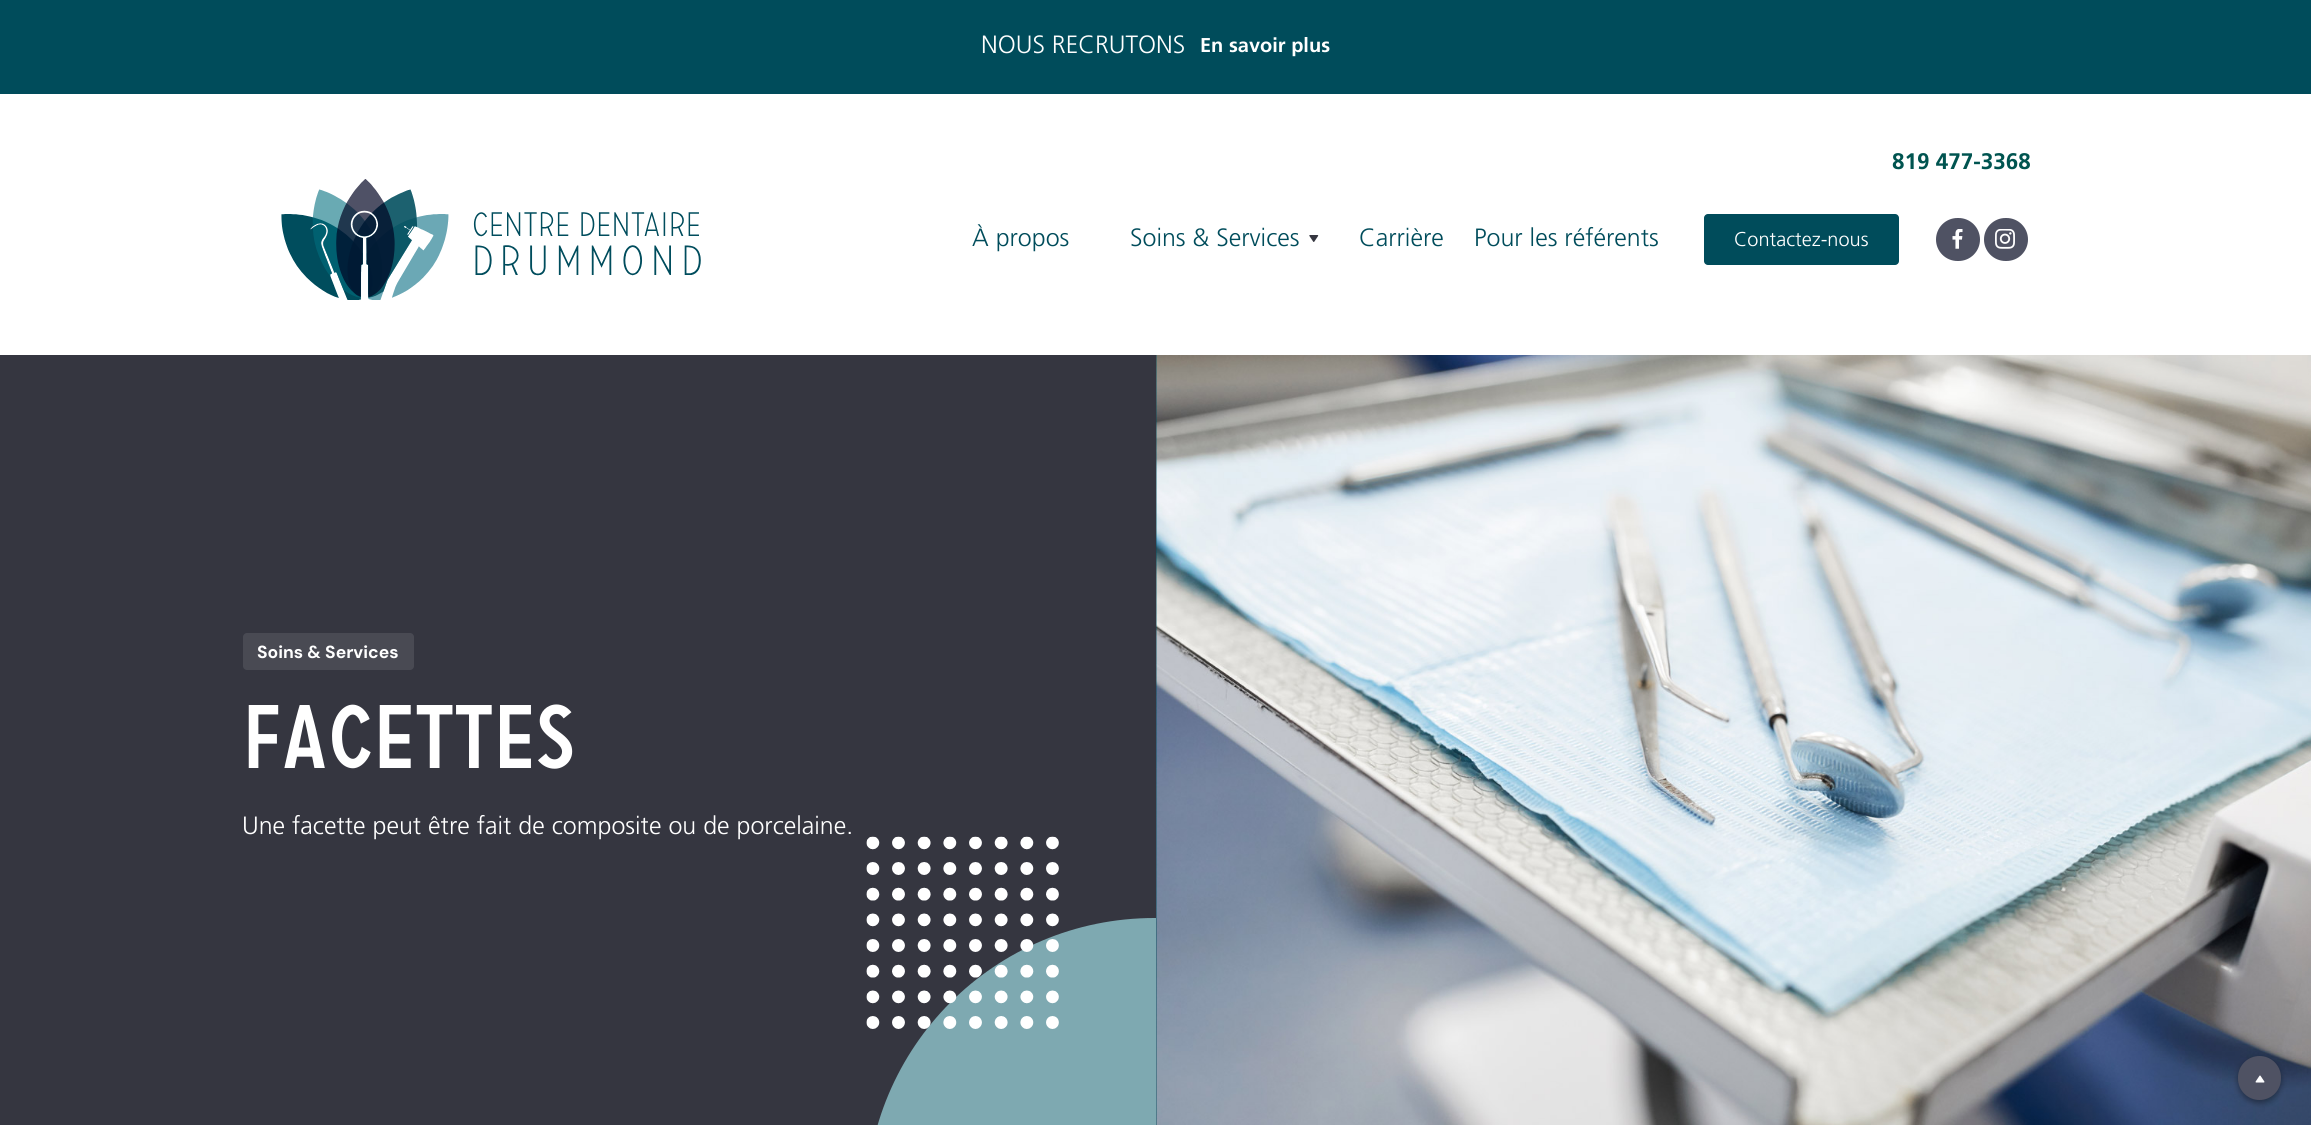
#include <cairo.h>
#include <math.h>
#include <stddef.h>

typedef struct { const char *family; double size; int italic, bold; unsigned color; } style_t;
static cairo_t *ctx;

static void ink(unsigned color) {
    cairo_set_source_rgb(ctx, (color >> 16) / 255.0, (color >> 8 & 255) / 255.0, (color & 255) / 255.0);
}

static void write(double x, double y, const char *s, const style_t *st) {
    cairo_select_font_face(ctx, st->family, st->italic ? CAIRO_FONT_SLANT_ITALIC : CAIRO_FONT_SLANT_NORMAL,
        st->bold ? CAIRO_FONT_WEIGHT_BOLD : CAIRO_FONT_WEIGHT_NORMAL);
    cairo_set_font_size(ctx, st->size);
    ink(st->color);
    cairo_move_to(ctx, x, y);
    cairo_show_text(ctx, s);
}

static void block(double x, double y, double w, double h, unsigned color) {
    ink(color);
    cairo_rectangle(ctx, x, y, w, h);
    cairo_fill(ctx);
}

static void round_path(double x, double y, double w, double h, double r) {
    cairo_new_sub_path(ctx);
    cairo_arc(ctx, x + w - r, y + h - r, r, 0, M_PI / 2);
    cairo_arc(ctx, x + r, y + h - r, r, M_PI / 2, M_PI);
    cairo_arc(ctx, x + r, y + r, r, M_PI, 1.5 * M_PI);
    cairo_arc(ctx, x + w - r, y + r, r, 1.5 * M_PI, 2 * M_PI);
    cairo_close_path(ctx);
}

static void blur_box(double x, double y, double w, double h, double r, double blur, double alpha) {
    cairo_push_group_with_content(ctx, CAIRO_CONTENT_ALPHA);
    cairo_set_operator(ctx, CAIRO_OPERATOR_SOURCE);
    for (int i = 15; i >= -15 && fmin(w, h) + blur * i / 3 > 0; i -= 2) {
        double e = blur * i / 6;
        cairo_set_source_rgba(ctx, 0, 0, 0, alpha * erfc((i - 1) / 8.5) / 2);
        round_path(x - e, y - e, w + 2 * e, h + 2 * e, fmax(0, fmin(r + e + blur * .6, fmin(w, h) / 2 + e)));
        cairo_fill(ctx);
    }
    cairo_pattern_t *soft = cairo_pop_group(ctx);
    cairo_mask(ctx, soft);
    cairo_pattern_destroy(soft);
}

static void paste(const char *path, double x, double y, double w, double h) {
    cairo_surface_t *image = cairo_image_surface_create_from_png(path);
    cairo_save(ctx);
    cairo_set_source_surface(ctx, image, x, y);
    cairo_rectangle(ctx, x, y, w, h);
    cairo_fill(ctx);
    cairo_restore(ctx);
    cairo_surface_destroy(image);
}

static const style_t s1 = {"Frutiger Light", 25, 0, 0, 0xffffff};
static const style_t s2 = {"Frutiger", 20, 0, 1, 0xffffff};
static const style_t s3 = {"Frutiger", 22.5, 0, 1, 0x005450};
static const style_t s4 = {"Frutiger Light", 25, 0, 0, 0x004c5b};
static const style_t s5 = {"Frutiger Light", 20, 0, 0, 0xffffff};
static const style_t s6 = {"DM Sans", 17.5, 0, 1, 0xffffff};
static const style_t s7 = {"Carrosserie", 90, 0, 0, 0xffffff};

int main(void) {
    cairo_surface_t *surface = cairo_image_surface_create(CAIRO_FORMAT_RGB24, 2311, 1130);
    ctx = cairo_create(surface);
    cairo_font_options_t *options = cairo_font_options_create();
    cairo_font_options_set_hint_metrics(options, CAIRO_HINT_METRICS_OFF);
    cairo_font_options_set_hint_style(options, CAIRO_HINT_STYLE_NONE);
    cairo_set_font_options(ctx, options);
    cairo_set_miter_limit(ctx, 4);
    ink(0x004c5b);
    cairo_paint(ctx);
    write(981, 53, "NOUS RECRUTONS", &s1);
    write(1200, 52, "En savoir plus", &s2);
    ink(0x000000);
    blur_box(15, 109, 2291, 241, 0, 12.5, 0.14);
    block(0, 94, 2311, 261, 0xffffff);
    write(1892, 169, "819 477-3368", &s3);
    paste("pic1.png", 281, 179, 420, 121);
    write(972, 246, "À propos", &s4);
    write(1130, 246, "Soins & Services", &s4);
    paste("pic2.png", 1309, 235, 10, 7);
    write(1359, 246, "Carrière", &s4);
    write(1474, 246, "Pour les référents", &s4);
    round_path(1704, 214, 195, 51, 4);
    cairo_fill(ctx);
    write(1734, 246, "Contactez-nous", &s5);
    ink(0x4f5263);
    round_path(1936, 218, 44, 43, 21.5);
    cairo_fill(ctx);
    paste("pic3.png", 1952, 229, 11, 20);
    round_path(1984, 218, 44, 43, 21.5);
    cairo_fill(ctx);
    paste("pic4.png", 1995, 229, 20, 20);
    block(0, 355, 1156, 770, 0x353640);
    cairo_set_source_rgba(ctx, 1, 1, 1, 0.1);
    round_path(243, 633, 171, 37, 4);
    cairo_fill(ctx);
    write(257, 658, "Soins & Services", &s6);
    write(242, 768, "Facettes", &s7);
    write(242, 834, "Une facette peut être fait de composite ou de porcelaine.", &s1);
    ink(0x7ea9b1);
    cairo_new_path(ctx);
    cairo_move_to(ctx, 1154.5, 918);
    cairo_line_to(ctx, 1156, 918);
    cairo_line_to(ctx, 1156, 1125);
    cairo_line_to(ctx, 866, 1125);
    cairo_line_to(ctx, 866, 1206.5);
    cairo_curve_to(ctx, 866, 1047, 995, 918, 1154.5, 918);
    cairo_close_path(ctx);
    cairo_fill(ctx);
    paste("pic5.png", 866, 836, 193, 193);
    paste("pic6.png", 1156, 355, 1155, 770);
    block(0, 1125, 2311, 5, 0xffffff);
    ink(0x000000);
    blur_box(2238, 1059, 43, 44, 21.5, 3, 0.37);
    ink(0x4f5263);
    round_path(2238, 1056, 43, 44, 21.5);
    cairo_fill(ctx);
    paste("pic7.png", 2255, 1075, 10, 8);
    cairo_surface_write_to_png(surface, "screenshot.png");
    cairo_font_options_destroy(options);
    cairo_destroy(ctx);
    cairo_surface_destroy(surface);
    return 0;
}
